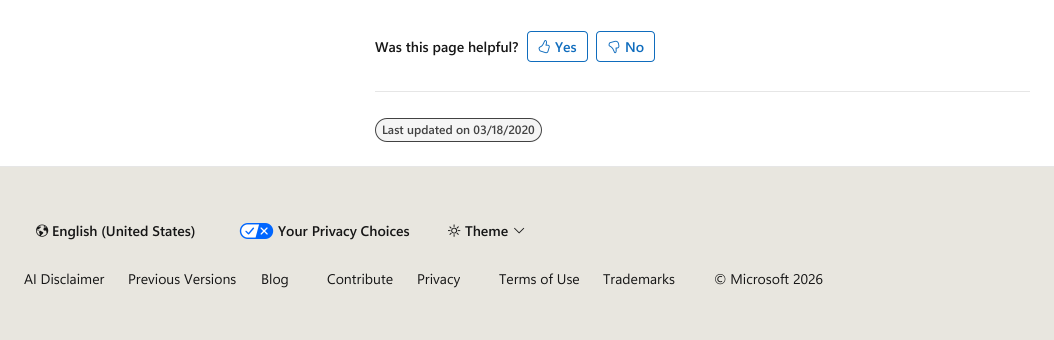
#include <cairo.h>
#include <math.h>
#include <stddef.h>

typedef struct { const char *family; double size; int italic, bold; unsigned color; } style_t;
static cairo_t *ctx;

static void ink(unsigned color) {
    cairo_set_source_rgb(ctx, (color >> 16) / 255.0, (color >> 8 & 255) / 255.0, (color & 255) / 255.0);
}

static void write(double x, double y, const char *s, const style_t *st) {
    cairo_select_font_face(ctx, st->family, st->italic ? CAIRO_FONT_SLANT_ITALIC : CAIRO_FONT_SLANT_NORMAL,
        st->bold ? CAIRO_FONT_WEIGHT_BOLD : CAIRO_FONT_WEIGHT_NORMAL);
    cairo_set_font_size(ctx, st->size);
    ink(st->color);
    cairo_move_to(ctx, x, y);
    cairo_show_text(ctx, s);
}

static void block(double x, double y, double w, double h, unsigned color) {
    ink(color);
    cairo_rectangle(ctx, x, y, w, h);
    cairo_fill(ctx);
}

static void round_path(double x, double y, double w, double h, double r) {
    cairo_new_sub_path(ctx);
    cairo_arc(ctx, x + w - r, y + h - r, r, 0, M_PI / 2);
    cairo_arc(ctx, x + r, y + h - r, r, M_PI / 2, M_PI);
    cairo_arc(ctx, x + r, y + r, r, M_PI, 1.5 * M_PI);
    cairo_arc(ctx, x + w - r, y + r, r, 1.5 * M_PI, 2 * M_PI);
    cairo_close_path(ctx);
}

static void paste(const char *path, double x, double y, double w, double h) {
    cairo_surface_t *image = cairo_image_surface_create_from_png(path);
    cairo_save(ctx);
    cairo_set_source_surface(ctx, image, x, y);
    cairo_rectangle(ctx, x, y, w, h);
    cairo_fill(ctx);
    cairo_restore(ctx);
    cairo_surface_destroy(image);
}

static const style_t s1 = {"Segoe UI SemiBold", 14, 0, 0, 0x161616};
static const style_t s2 = {"Segoe UI SemiBold", 14, 0, 0, 0x0f6cbd};
static const style_t s3 = {"Segoe UI SemiBold", 12, 0, 0, 0x424242};
static const style_t s4 = {"Segoe UI", 14, 0, 0, 0x161616};

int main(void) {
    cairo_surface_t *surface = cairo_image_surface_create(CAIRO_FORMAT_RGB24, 1054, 340);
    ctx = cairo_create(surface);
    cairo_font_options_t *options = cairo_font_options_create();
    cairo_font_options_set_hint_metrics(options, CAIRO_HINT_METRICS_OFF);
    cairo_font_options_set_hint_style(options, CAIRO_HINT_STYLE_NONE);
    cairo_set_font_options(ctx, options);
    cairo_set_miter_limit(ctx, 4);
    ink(0xffffff);
    cairo_paint(ctx);
    write(375, 52, "Was this page helpful?", &s1);
    round_path(527.5, 31.5, 60, 30, 3.5);
    ink(0x0f6cbd);
    cairo_set_line_width(ctx, 1);
    cairo_stroke(ctx);
    paste("pic1.png", 538, 40, 12, 14);
    write(555, 52, "Yes", &s2);
    round_path(596.5, 31.5, 58, 30, 3.5);
    cairo_stroke(ctx);
    paste("pic2.png", 608, 40, 12, 14);
    write(625, 52, "No", &s2);
    block(375, 91, 655, 1, 0xe6e6e6);
    ink(0xf5f5f5);
    round_path(375.5, 118.5, 166, 23, 11.5);
    cairo_fill_preserve(ctx);
    ink(0x424242);
    cairo_stroke(ctx);
    write(382, 134, "Last updated on 03/18/2020", &s3);
    block(0, 167, 1054, 173, 0xe8e6df);
    block(0, 166, 1054, 1, 0xe6e6e6);
    paste("pic3.png", 36, 224, 13, 13);
    write(52, 236, "English (United States)", &s1);
    paste("pic4.png", 239, 223, 35, 16);
    write(278, 236, "Your Privacy Choices", &s1);
    paste("pic5.png", 448, 224, 13, 13);
    write(465, 236, "Theme", &s1);
    paste("pic6.png", 514, 227, 11, 7);
    write(24, 284, "AI Disclaimer", &s4);
    write(128, 284, "Previous Versions", &s4);
    write(261, 284, "Blog", &s4);
    write(327, 284, "Contribute", &s4);
    write(417, 284, "Privacy", &s4);
    write(499, 284, "Terms of Use", &s4);
    write(603, 284, "Trademarks", &s4);
    write(714, 284, "© Microsoft 2026", &s4);
    cairo_surface_write_to_png(surface, "screenshot.png");
    cairo_font_options_destroy(options);
    cairo_destroy(ctx);
    cairo_surface_destroy(surface);
    return 0;
}
